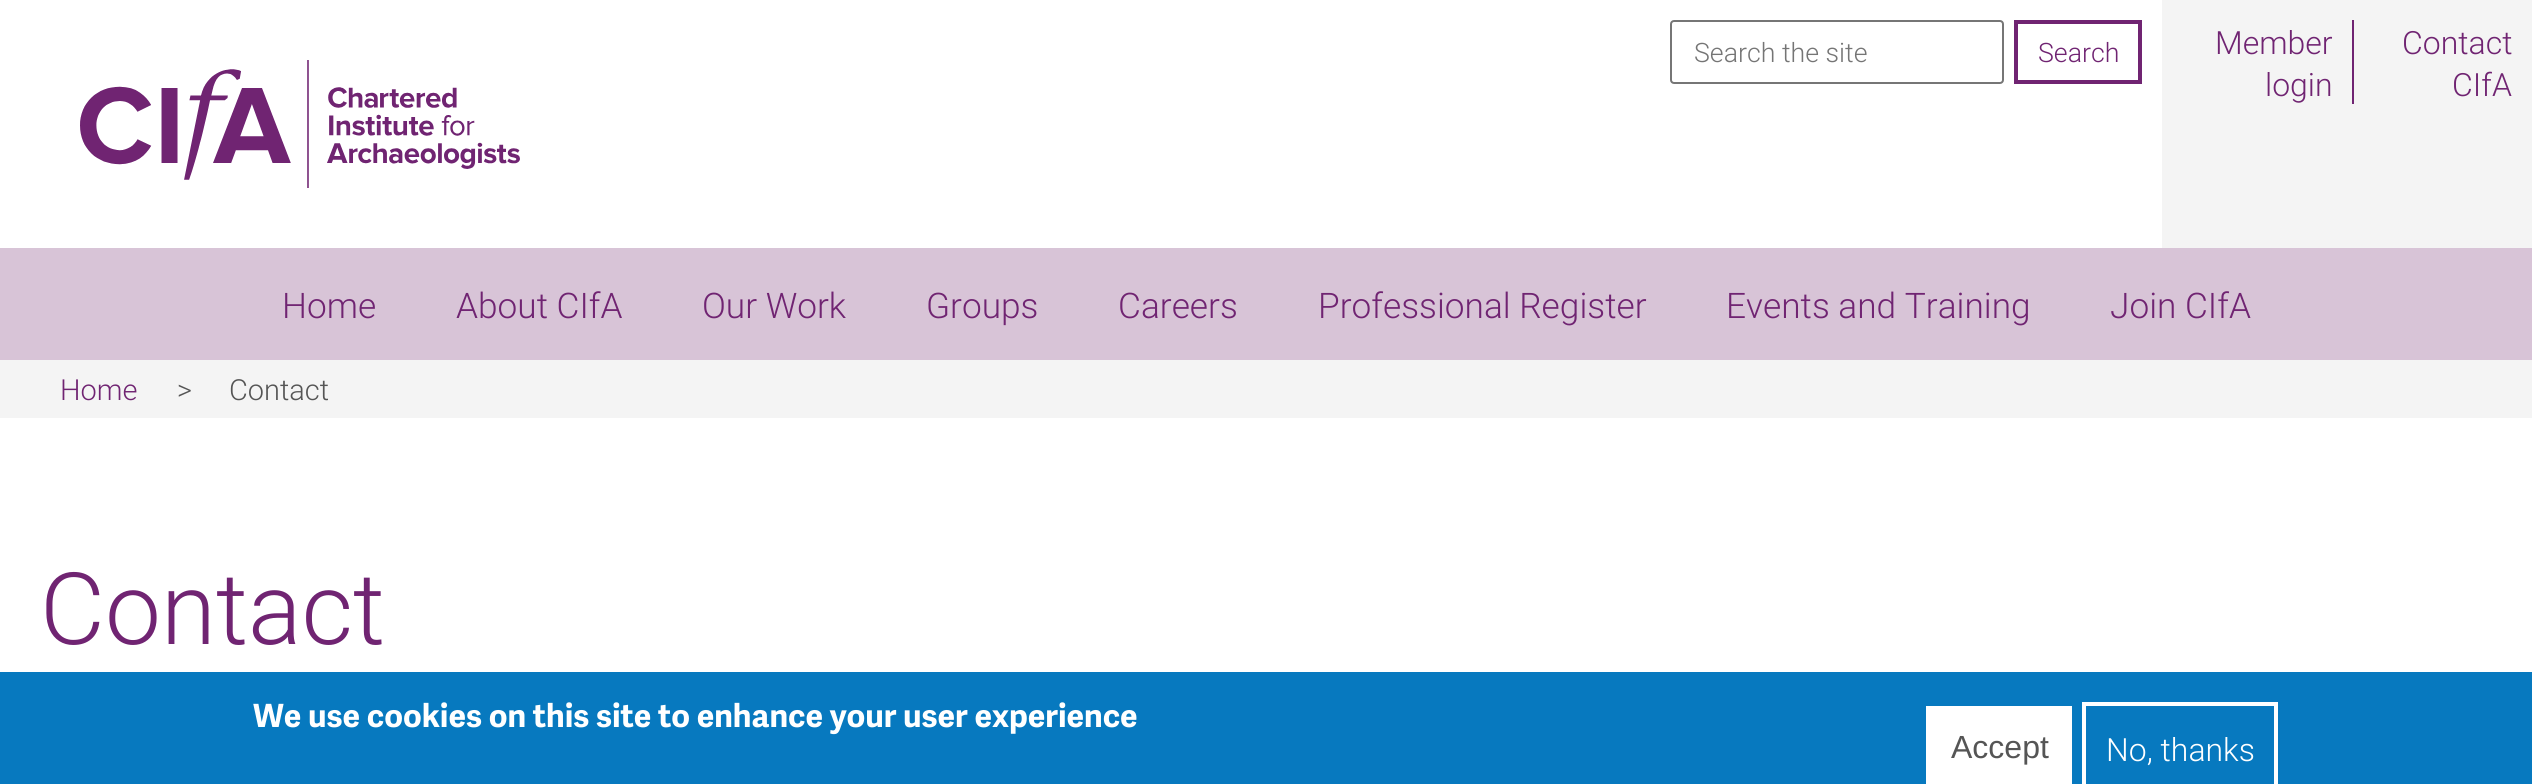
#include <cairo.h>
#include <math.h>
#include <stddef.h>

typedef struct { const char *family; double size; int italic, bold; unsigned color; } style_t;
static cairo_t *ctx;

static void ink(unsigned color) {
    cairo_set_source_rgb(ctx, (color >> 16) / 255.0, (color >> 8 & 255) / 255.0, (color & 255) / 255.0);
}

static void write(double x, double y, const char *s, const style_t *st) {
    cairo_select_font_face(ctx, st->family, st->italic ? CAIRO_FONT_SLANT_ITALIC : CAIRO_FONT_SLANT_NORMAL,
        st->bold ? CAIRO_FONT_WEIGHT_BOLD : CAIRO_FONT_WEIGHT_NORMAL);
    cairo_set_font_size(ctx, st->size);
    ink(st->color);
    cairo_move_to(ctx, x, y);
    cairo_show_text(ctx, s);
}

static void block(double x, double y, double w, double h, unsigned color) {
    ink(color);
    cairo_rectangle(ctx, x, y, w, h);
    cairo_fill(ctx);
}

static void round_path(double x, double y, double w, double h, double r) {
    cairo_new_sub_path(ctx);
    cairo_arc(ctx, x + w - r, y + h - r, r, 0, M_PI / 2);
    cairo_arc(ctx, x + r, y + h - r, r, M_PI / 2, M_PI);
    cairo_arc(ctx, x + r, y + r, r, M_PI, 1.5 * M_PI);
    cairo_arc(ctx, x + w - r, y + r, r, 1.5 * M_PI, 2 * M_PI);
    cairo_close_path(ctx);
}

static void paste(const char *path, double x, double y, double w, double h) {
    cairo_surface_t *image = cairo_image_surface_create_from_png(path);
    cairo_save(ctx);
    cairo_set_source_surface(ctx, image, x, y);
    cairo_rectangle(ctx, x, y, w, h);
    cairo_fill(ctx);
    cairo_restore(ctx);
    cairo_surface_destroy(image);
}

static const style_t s1 = {"Roboto Light", 26.75, 0, 0, 0x757575};
static const style_t s2 = {"Roboto Light", 26.75, 0, 0, 0x702472};
static const style_t s3 = {"Roboto Light", 32, 0, 0, 0x702472};
static const style_t s4 = {"Roboto Light", 35.25, 0, 0, 0x702472};
static const style_t s5 = {"Roboto Light", 29, 0, 0, 0x702472};
static const style_t s6 = {"Roboto Light", 29, 0, 0, 0x555555};
static const style_t s7 = {"Roboto Light", 100, 0, 0, 0x702472};
static const style_t s8 = {"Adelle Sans", 32, 0, 1, 0xffffff};
static const style_t s9 = {"Liberation Sans", 32, 0, 0, 0x555555};
static const style_t s10 = {"Roboto Light", 32, 0, 0, 0xffffff};

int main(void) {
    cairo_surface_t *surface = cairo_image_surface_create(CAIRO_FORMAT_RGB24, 2532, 784);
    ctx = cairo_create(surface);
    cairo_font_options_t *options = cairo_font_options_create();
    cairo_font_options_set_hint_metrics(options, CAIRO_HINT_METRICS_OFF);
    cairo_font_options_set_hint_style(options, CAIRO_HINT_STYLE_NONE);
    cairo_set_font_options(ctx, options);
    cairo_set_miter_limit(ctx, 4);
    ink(0xffffff);
    cairo_paint(ctx);
    round_path(1671, 21, 332, 62, 3);
    ink(0x767676);
    cairo_stroke(ctx);
    write(1694, 62, "Search the site", &s1);
    cairo_rectangle(ctx, 2016, 22, 124, 60);
    ink(0x702472);
    cairo_set_line_width(ctx, 4);
    cairo_stroke(ctx);
    write(2038, 62, "Search", &s2);
    block(2162, 0, 370, 248, 0xf4f4f4);
    block(2352, 20, 2, 84, 0x702472);
    write(2215, 54, "Member", &s3);
    write(2265, 96, "login", &s3);
    write(2402, 54, "Contact", &s3);
    write(2452, 96, "CIfA", &s3);
    paste("pic1.png", 80, 60, 440, 128);
    block(0, 248, 2532, 112, 0xd8c4d7);
    write(282, 318, "Home", &s4);
    write(456, 318, "About CIfA", &s4);
    write(702, 318, "Our Work", &s4);
    write(926, 318, "Groups", &s4);
    write(1118, 318, "Careers", &s4);
    write(1318, 318, "Professional Register", &s4);
    write(1726, 318, "Events and Training", &s4);
    write(2110, 318, "Join CIfA", &s4);
    block(0, 360, 2532, 58, 0xf4f4f4);
    write(60, 400, "Home", &s5);
    write(177, 400, ">", &s6);
    write(229, 400, "Contact", &s6);
    write(40, 644, "Contact", &s7);
    block(0, 672, 2532, 112, 0x0779bf);
    write(253, 727, "We use cookies on this site to enhance your user experience", &s8);
    block(1926, 706, 146, 78, 0xffffff);
    write(1951, 758, "Accept", &s9);
    cairo_rectangle(ctx, 2084, 704, 192, 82);
    ink(0xffffff);
    cairo_stroke(ctx);
    write(2106, 761, "No, thanks", &s10);
    cairo_surface_write_to_png(surface, "screenshot.png");
    cairo_font_options_destroy(options);
    cairo_destroy(ctx);
    cairo_surface_destroy(surface);
    return 0;
}
